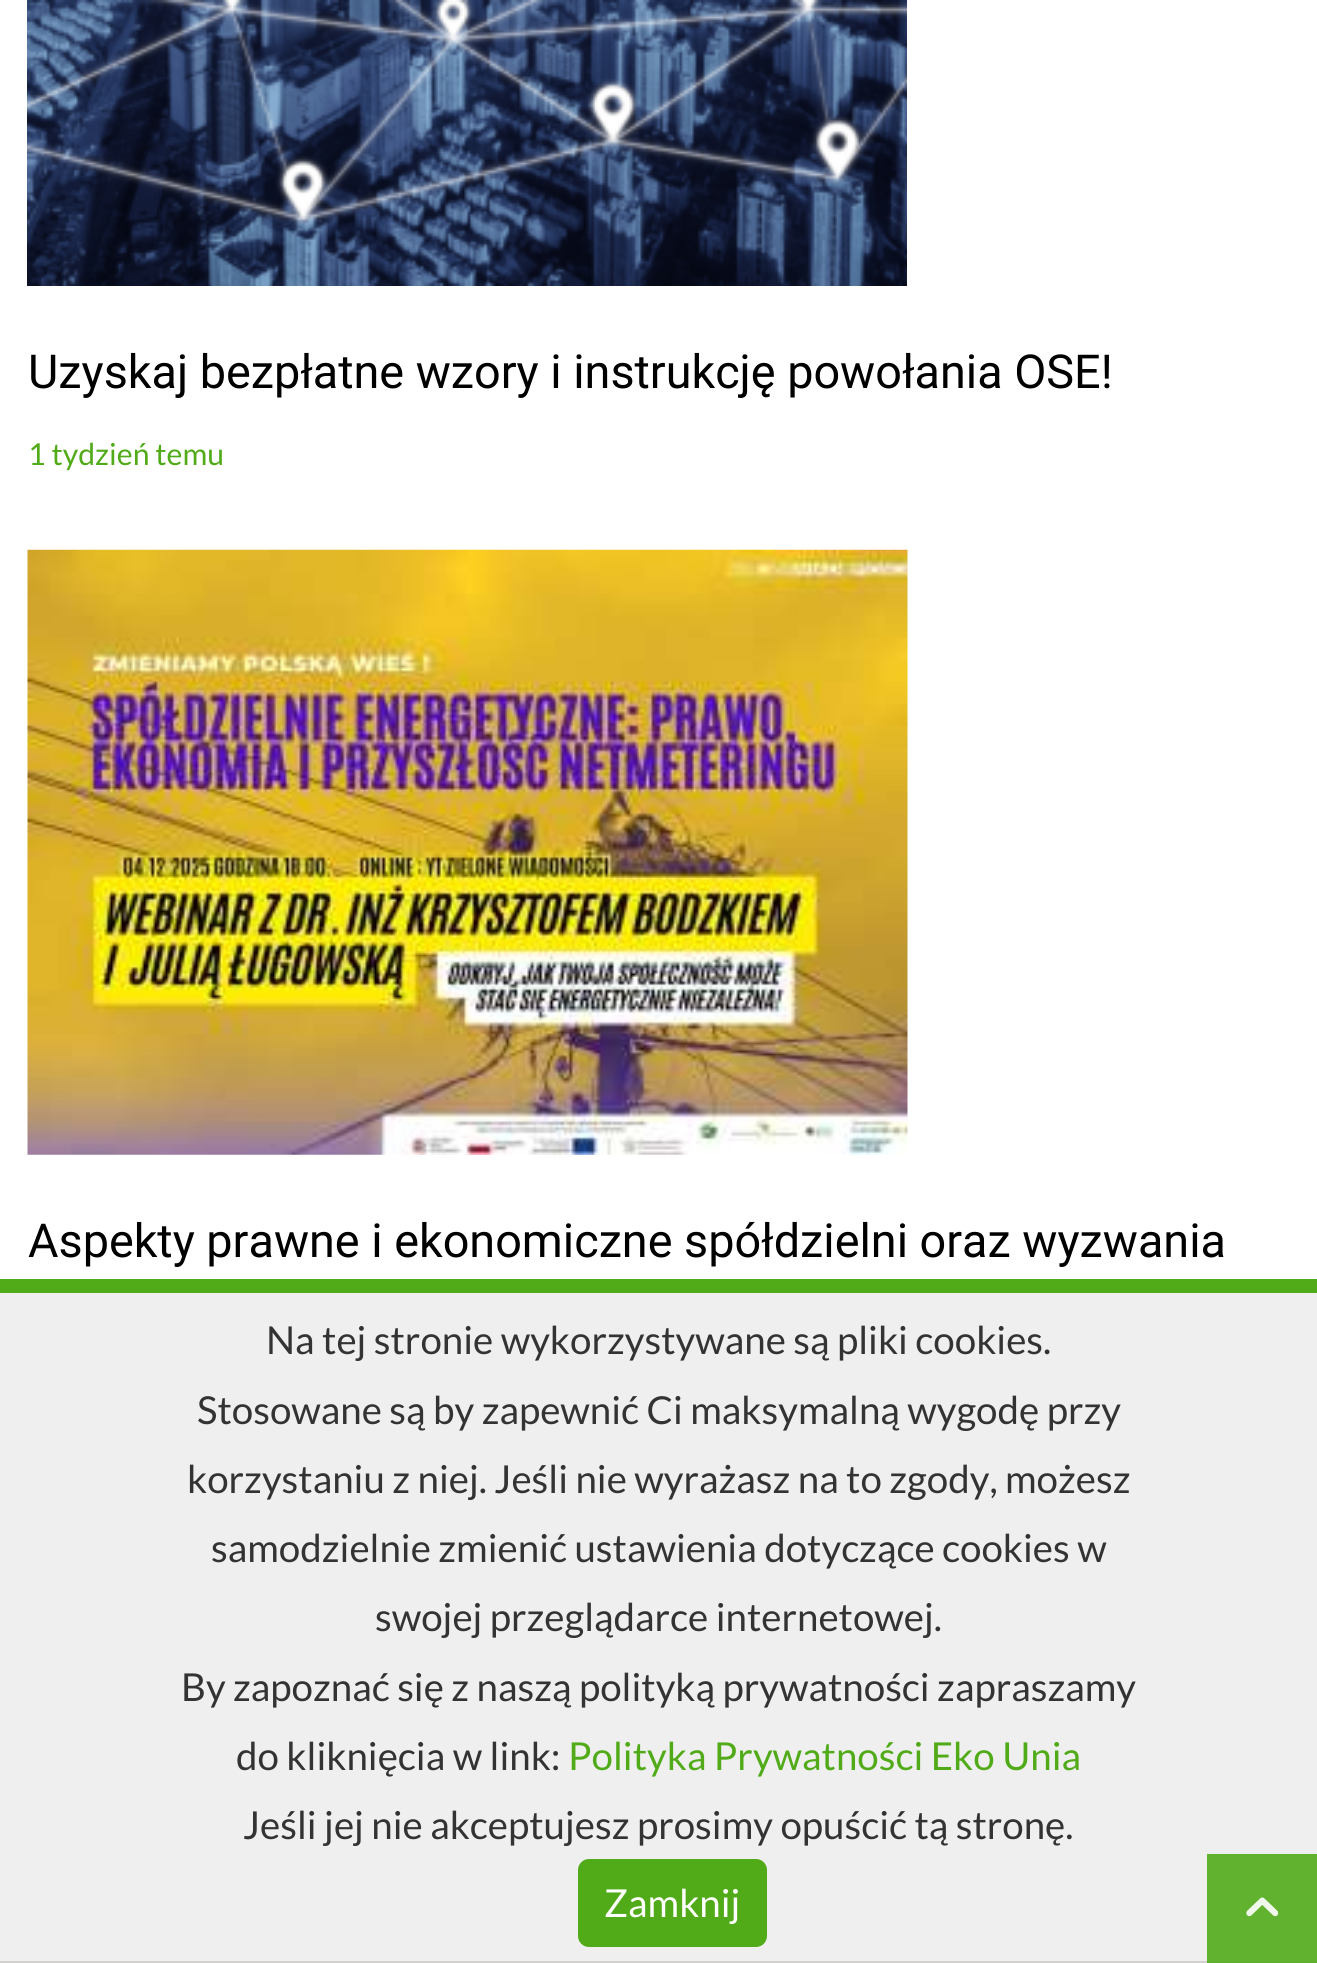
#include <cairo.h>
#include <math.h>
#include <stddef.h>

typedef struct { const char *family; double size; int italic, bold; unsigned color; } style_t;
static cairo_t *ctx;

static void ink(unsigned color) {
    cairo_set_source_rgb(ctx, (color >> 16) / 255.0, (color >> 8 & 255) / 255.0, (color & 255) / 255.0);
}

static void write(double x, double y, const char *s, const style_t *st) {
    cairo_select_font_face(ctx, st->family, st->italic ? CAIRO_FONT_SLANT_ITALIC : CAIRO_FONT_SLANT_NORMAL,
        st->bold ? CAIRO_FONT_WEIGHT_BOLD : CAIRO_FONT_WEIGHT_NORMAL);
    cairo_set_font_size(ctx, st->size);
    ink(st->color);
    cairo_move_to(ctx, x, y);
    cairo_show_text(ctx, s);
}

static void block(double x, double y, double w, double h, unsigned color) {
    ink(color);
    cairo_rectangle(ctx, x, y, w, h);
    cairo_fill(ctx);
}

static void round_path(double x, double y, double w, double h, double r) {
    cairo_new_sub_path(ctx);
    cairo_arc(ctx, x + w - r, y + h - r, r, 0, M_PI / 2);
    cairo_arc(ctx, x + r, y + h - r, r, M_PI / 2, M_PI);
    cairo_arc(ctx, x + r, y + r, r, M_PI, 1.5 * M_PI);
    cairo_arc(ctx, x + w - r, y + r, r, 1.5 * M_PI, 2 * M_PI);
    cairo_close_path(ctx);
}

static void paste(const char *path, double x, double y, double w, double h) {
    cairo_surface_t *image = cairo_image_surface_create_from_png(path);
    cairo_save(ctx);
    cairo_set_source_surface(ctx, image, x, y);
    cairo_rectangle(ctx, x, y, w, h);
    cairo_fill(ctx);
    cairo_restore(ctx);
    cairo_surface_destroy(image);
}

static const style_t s1 = {"Roboto", 46.75, 0, 0, 0x000000};
static const style_t s2 = {"Lato", 30.25, 0, 0, 0x51ab19};
static const style_t s3 = {"Lato", 38.5, 0, 0, 0x333333};
static const style_t s4 = {"Lato", 38.5, 0, 0, 0x51ab19};
static const style_t s5 = {"Lato", 38.5, 0, 0, 0xffffff};

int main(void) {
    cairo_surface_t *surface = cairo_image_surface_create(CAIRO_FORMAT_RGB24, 1317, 1963);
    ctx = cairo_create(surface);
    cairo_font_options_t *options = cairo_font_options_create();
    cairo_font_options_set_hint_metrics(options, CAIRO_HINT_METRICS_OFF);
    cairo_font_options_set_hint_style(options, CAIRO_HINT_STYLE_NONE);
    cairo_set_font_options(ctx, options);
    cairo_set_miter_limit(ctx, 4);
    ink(0xffffff);
    cairo_paint(ctx);
    paste("pic1.png", 27, 0, 880, 286);
    write(28, 388, "Uzyskaj bezpłatne wzory i instrukcję powołania OSE!", &s1);
    write(28, 465, "1 tydzień temu", &s2);
    paste("pic2.png", 27, 549, 881, 606);
    write(28, 1257, "Aspekty prawne i ekonomiczne spółdzielni oraz wyzwania", &s1);
    block(0, 1293, 1317, 668, 0xefefef);
    block(1207, 1854, 110, 107, 0x61b22e);
    block(0, 1279, 1317, 14, 0x51ab19);
    block(0, 1961, 1207, 2, 0xd3d0d0);
    block(1207, 1961, 110, 2, 0x5eaf2b);
    write(266, 1354, "Na tej stronie wykorzystywane są pliki cookies.", &s3);
    write(197, 1424, "Stosowane są by zapewnić Ci maksymalną wygodę przy", &s3);
    write(187, 1493, "korzystaniu z niej. Jeśli nie wyrażasz na to zgody, możesz", &s3);
    write(211, 1562, "samodzielnie zmienić ustawienia dotyczące cookies w", &s3);
    write(375, 1631, "swojej przeglądarce internetowej.", &s3);
    write(181, 1701, "By zapoznać się z naszą polityką prywatności zapraszamy", &s3);
    write(236, 1770, "do kliknięcia w link:", &s3);
    write(568, 1770, "Polityka Prywatności Eko Unia", &s4);
    write(243, 1839, "Jeśli jej nie akceptujesz prosimy opuścić tą stronę.", &s3);
    ink(0x51ab19);
    round_path(578, 1859, 189, 88, 11);
    cairo_fill(ctx);
    write(604, 1917, "Zamknij", &s5);
    paste("pic3.png", 1246, 1897, 33, 20);
    cairo_surface_write_to_png(surface, "screenshot.png");
    cairo_font_options_destroy(options);
    cairo_destroy(ctx);
    cairo_surface_destroy(surface);
    return 0;
}
